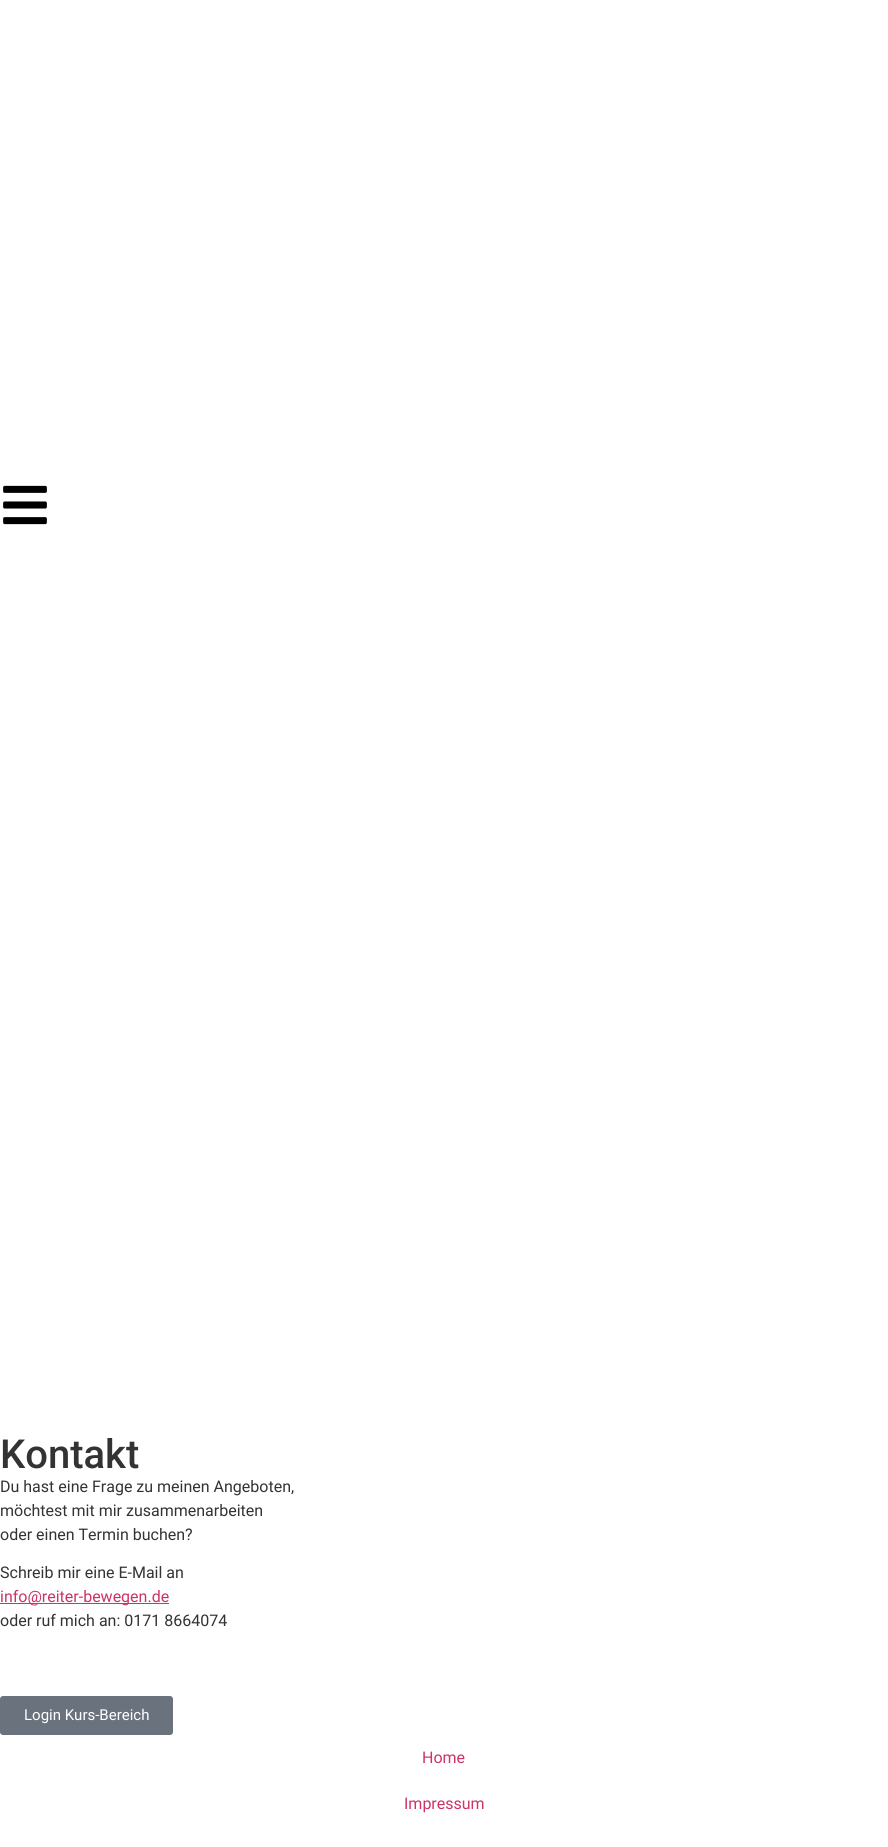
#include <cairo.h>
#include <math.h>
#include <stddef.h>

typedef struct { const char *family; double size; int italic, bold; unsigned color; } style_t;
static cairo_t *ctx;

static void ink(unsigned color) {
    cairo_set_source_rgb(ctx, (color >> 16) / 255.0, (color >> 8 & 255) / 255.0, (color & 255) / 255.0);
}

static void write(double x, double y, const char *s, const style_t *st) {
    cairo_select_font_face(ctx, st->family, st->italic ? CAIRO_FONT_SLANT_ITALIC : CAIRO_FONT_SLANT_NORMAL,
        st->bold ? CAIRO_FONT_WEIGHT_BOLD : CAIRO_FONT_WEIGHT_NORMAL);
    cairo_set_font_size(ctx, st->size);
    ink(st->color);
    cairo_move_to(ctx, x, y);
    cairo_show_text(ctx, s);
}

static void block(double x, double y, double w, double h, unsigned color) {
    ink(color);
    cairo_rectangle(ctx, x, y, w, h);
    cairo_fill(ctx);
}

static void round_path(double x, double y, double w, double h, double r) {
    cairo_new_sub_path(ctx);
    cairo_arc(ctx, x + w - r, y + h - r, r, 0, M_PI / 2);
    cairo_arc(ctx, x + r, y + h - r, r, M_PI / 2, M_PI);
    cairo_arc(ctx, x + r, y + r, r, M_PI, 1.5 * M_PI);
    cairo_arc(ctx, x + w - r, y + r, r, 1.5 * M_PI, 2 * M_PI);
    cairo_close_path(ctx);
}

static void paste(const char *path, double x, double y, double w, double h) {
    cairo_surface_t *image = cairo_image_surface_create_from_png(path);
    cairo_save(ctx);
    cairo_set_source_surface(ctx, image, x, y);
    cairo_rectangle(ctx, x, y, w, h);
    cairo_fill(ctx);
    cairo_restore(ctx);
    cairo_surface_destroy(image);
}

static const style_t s1 = {"Roboto Medium", 40, 0, 0, 0x333333};
static const style_t s2 = {"Roboto", 16, 0, 0, 0x333333};
static const style_t s3 = {"Roboto", 16, 0, 0, 0xcc3366};
static const style_t s4 = {"Roboto", 15, 0, 0, 0xffffff};

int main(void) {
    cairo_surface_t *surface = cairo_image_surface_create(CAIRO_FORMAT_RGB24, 888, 1847);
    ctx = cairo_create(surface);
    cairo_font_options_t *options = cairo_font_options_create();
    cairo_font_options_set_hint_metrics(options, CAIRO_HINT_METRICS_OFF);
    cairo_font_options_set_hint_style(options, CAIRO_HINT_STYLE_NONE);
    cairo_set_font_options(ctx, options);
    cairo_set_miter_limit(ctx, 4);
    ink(0xffffff);
    cairo_paint(ctx);
    paste("pic1.png", 3, 485, 44, 40);
    write(0, 1468, "Kontakt", &s1);
    write(0, 1492, "Du hast eine Frage zu meinen Angeboten,", &s2);
    write(0, 1516, "möchtest mit mir zusammenarbeiten", &s2);
    write(0, 1540, "oder einen Termin buchen?", &s2);
    write(0, 1578, "Schreib mir eine E-Mail an", &s2);
    block(0, 1603, 169, 1, 0xcc3366);
    write(0, 1602, "info@reiter-bewegen.de", &s3);
    write(0, 1626, "oder ruf mich an: 0171 8664074", &s2);
    ink(0x69727d);
    round_path(0, 1696, 173, 39, 3);
    cairo_fill(ctx);
    write(24, 1720, "Login Kurs-Bereich", &s4);
    write(422, 1763, "Home", &s3);
    write(404, 1809, "Impressum", &s3);
    cairo_surface_write_to_png(surface, "screenshot.png");
    cairo_font_options_destroy(options);
    cairo_destroy(ctx);
    cairo_surface_destroy(surface);
    return 0;
}
